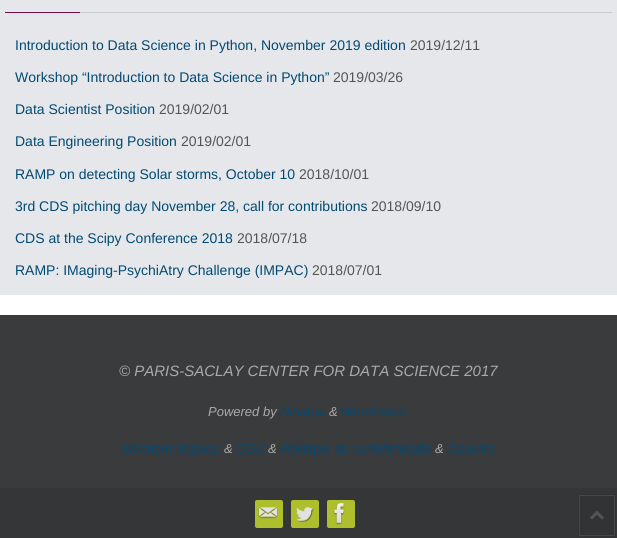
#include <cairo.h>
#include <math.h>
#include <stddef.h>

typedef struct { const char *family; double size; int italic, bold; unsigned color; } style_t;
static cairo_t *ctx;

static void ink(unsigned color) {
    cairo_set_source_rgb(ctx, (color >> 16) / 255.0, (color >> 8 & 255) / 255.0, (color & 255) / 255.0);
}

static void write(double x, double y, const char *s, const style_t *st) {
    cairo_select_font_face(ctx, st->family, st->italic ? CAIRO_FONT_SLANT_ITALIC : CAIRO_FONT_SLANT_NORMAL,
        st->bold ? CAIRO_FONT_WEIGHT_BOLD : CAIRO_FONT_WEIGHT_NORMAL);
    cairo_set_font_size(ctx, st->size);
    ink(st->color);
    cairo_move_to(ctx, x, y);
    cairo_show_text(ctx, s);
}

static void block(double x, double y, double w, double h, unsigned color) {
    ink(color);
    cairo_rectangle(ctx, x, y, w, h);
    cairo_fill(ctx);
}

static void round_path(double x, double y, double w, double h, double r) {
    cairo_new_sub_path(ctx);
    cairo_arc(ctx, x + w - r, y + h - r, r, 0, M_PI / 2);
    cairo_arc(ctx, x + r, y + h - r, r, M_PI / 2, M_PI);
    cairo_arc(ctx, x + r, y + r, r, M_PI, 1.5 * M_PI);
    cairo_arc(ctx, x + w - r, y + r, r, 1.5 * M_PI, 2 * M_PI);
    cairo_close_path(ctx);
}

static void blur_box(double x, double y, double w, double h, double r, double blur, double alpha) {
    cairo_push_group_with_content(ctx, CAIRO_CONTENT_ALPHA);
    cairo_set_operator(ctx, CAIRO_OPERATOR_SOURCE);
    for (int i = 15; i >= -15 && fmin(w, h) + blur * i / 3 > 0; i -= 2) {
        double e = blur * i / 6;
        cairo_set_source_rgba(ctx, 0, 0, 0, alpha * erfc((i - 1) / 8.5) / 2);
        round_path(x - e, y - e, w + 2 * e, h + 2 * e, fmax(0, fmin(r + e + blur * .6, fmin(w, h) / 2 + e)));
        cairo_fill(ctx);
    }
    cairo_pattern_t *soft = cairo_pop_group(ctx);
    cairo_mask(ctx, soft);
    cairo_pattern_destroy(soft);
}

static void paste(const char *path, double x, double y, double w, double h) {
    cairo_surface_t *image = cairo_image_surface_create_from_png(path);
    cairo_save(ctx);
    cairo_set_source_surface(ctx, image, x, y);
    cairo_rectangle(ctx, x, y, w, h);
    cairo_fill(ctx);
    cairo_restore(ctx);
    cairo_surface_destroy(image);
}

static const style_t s1 = {"Liberation Sans", 14, 0, 0, 0x014a74};
static const style_t s2 = {"Liberation Sans", 14, 0, 0, 0x555555};
static const style_t s3 = {"Liberation Sans", 15, 1, 0, 0xaaaaaa};
static const style_t s4 = {"Liberation Sans", 13, 1, 0, 0xaaaaaa};
static const style_t s5 = {"Liberation Sans", 13, 1, 0, 0x014a74};

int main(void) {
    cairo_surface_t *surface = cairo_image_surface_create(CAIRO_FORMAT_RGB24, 617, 538);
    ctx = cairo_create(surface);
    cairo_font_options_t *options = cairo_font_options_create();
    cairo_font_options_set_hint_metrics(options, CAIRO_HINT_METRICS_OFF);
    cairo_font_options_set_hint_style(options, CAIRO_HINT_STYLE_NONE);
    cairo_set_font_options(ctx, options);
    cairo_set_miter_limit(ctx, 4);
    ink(0xffffff);
    cairo_paint(ctx);
    block(0, 0, 617, 295, 0xe6e7ea);
    block(80, 12, 532, 1, 0xcccccc);
    block(5, 12, 75, 1, 0x770d47);
    write(15, 50, "Introduction to Data Science in Python, November 2019 edition", &s1);
    write(410, 50, "2019/12/11", &s2);
    write(15, 82, "Workshop “Introduction to Data Science in Python”", &s1);
    write(333, 82, "2019/03/26", &s2);
    write(15, 114, "Data Scientist Position", &s1);
    write(159, 114, "2019/02/01", &s2);
    write(15, 146, "Data Engineering Position", &s1);
    write(181, 146, "2019/02/01", &s2);
    write(15, 179, "RAMP on detecting Solar storms, October 10", &s1);
    write(299, 179, "2018/10/01", &s2);
    write(15, 211, "3rd CDS pitching day November 28, call for contributions", &s1);
    write(371, 211, "2018/09/10", &s2);
    write(15, 243, "CDS at the Scipy Conference 2018", &s1);
    write(237, 243, "2018/07/18", &s2);
    write(15, 275, "RAMP: IMaging-PsychiAtry Challenge (IMPAC)", &s1);
    write(312, 275, "2018/07/01", &s2);
    block(0, 315, 617, 173, 0x3a3b3d);
    write(119, 376, "© PARIS-SACLAY CENTER FOR DATA SCIENCE 2017", &s3);
    write(208, 416, "Powered by", &s4);
    write(280, 416, "Nirvana", &s5);
    write(329, 416, "&", &s4);
    write(341, 416, "WordPress.", &s5);
    write(122, 453, "Mentions légales", &s5);
    write(224, 453, "&", &s4);
    write(236, 453, "CGU", &s5);
    write(268, 453, "&", &s4);
    write(281, 453, "Politique de confidentialité", &s5);
    write(435, 453, "&", &s4);
    write(448, 453, "Cookies", &s5);
    block(0, 488, 617, 50, 0x353638);
    ink(0xadbf2d);
    round_path(255, 500, 28, 28, 2);
    cairo_fill(ctx);
    paste("pic1.png", 258, 507, 20, 12);
    round_path(291, 500, 28, 28, 2);
    cairo_fill(ctx);
    paste("pic2.png", 296, 507, 18, 15);
    round_path(327, 500, 28, 28, 2);
    cairo_fill(ctx);
    paste("pic3.png", 333, 503, 12, 22);
    ink(0x000000);
    blur_box(579, 495, 36, 41, 0, 0.5, 0.28);
    ink(0x323335);
    cairo_rectangle(ctx, 579.5, 495.5, 35, 40);
    cairo_fill_preserve(ctx);
    ink(0x474749);
    cairo_set_line_width(ctx, 1);
    cairo_stroke(ctx);
    paste("pic4.png", 590, 511, 14, 9);
    cairo_surface_write_to_png(surface, "screenshot.png");
    cairo_font_options_destroy(options);
    cairo_destroy(ctx);
    cairo_surface_destroy(surface);
    return 0;
}
